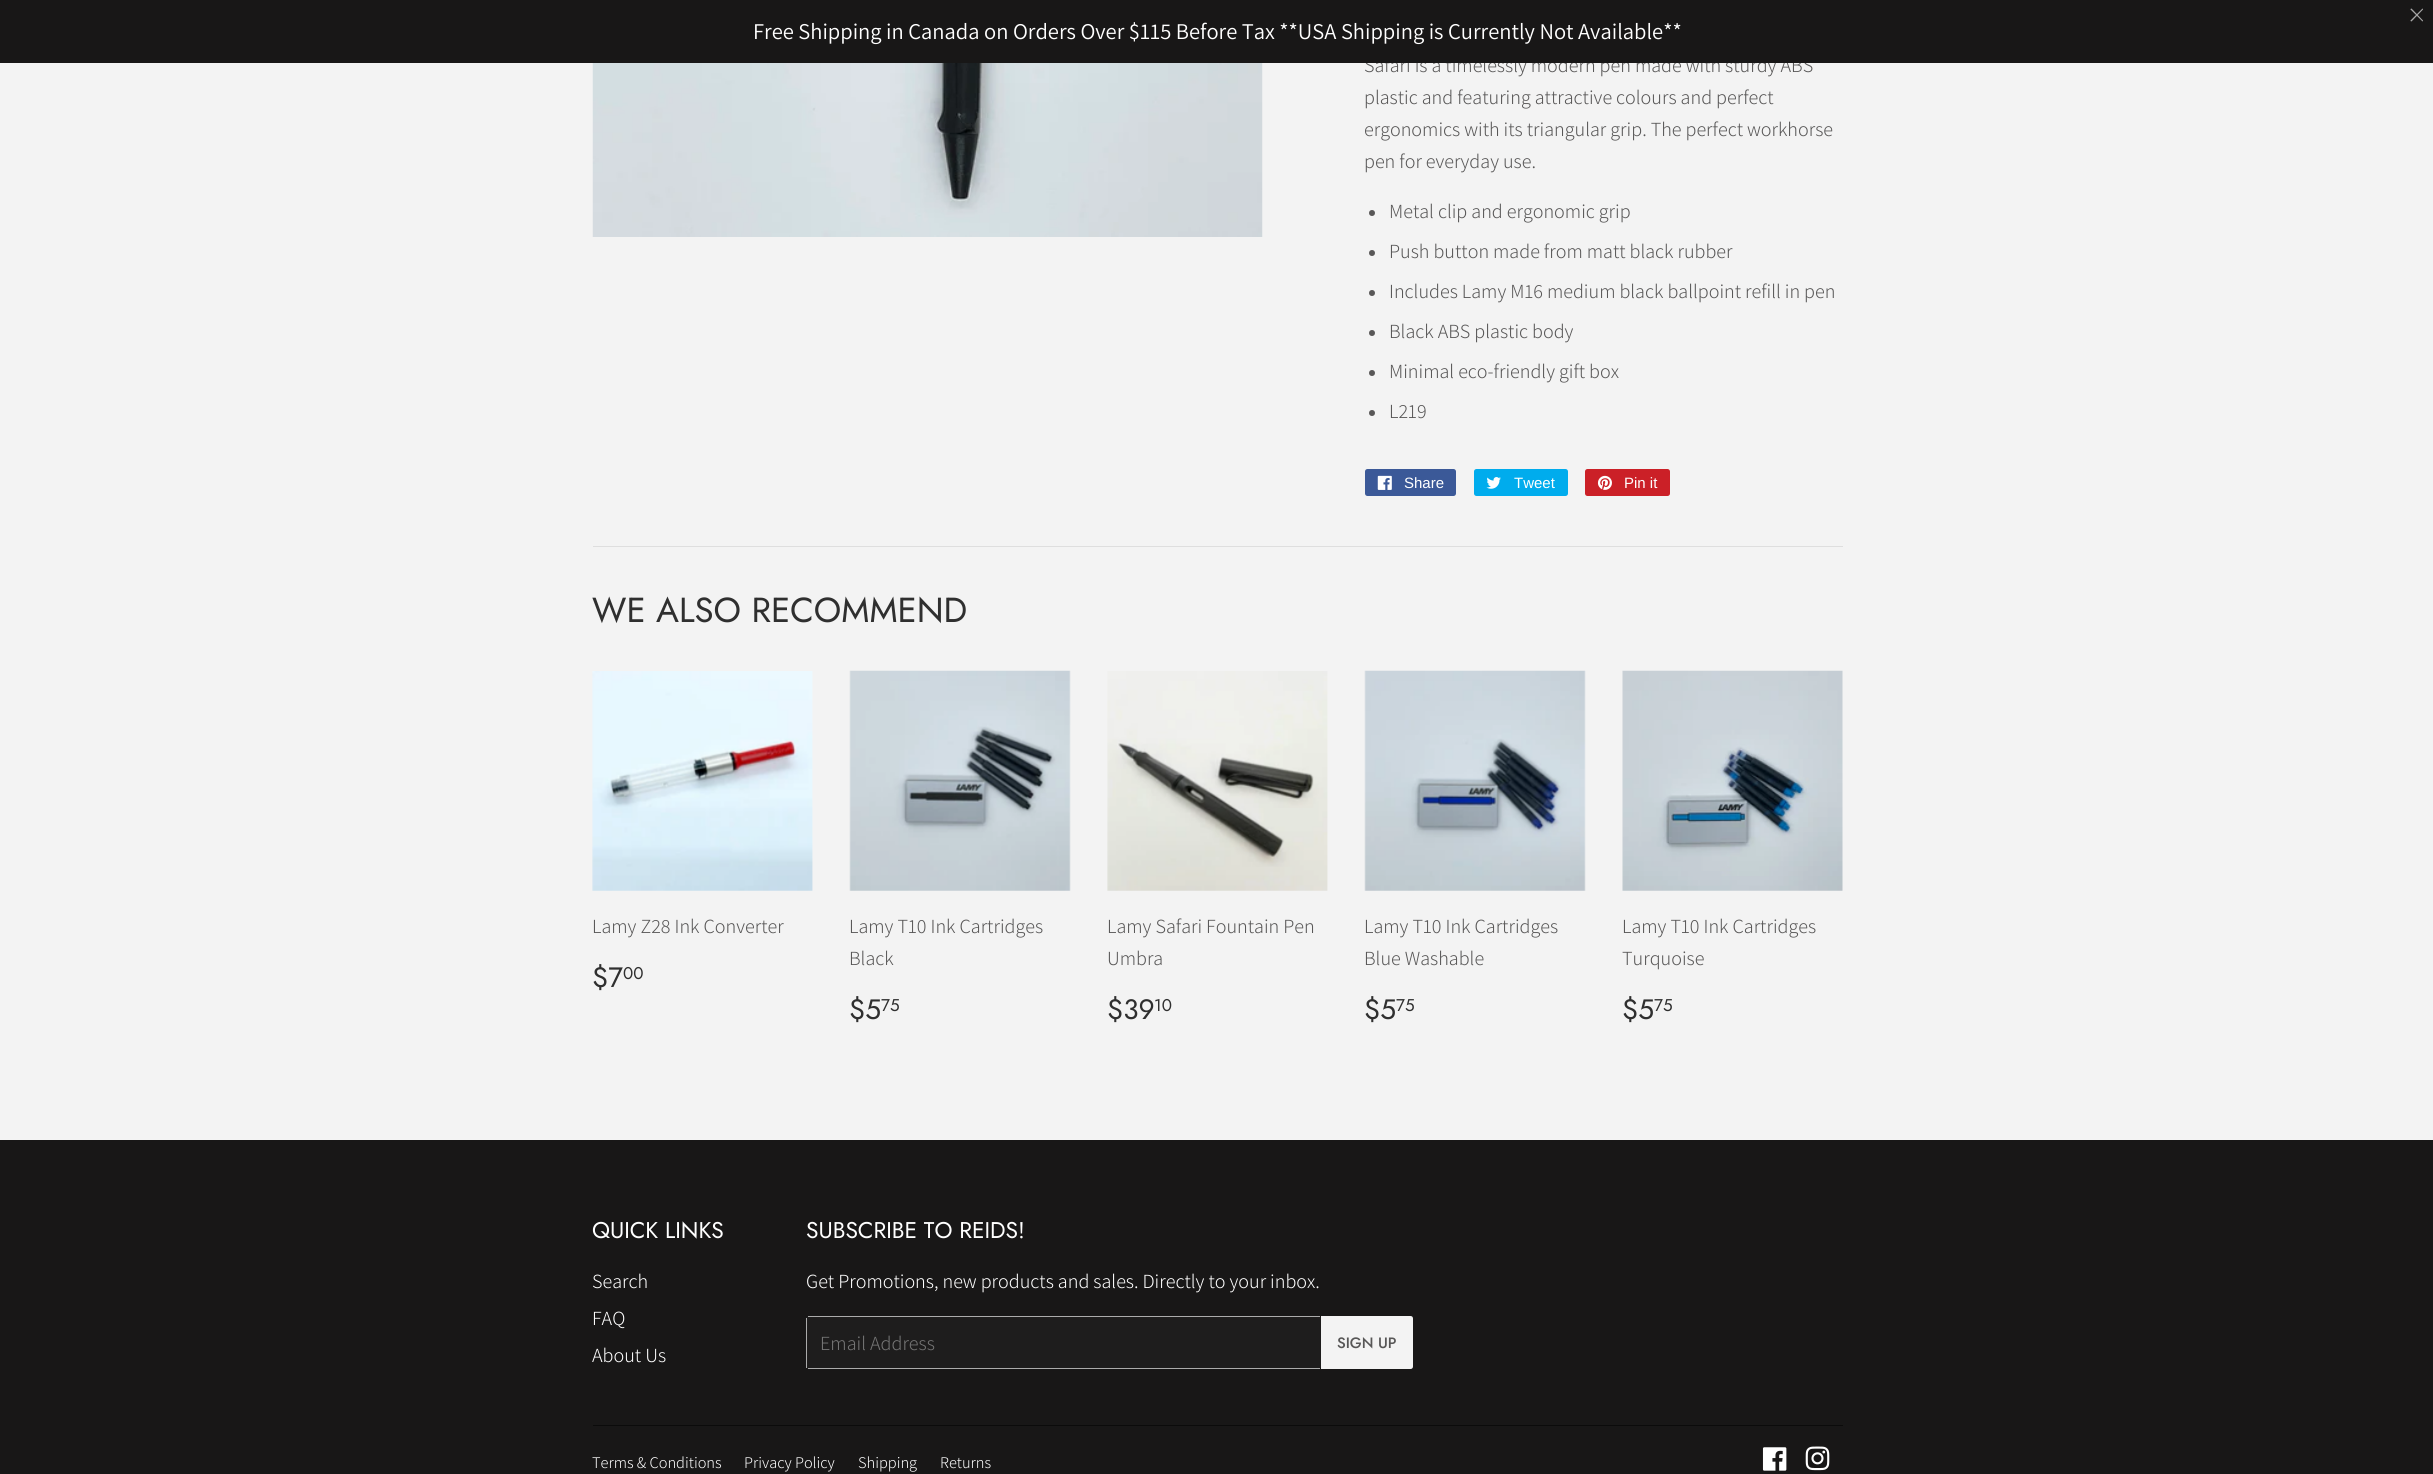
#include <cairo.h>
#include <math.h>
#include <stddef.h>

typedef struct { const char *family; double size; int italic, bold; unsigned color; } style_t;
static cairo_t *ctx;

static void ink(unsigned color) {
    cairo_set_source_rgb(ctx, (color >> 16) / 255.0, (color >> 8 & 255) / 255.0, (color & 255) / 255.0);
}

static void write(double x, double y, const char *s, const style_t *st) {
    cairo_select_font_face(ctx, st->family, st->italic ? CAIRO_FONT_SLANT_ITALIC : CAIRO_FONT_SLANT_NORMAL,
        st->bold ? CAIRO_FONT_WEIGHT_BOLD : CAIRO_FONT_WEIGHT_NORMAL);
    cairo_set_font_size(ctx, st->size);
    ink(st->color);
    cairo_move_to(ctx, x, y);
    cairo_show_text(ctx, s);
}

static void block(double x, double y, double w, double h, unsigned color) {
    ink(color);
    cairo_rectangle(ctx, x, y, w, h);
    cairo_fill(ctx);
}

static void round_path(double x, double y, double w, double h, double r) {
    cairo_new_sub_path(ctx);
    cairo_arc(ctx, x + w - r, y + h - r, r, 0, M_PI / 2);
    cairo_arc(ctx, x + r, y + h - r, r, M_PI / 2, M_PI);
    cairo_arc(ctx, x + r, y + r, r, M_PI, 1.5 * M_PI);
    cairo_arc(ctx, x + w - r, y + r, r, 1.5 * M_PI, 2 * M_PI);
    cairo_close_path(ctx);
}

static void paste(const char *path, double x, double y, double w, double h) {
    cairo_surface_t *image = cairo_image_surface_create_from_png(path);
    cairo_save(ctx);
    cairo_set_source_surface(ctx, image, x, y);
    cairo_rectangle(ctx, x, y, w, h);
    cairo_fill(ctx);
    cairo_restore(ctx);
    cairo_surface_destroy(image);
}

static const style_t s1 = {"Assistant Light", 20, 0, 0, 0x585757};
static const style_t s2 = {"Assistant ExtraLight", 22.5, 0, 0, 0xffffff};
static const style_t s3 = {"Liberation Sans", 15, 0, 0, 0xffffff};
static const style_t s4 = {"Jost", 34.75, 0, 0, 0x2f2f2f};
static const style_t s5 = {"Jost", 28, 0, 0, 0x2f2f2f};
static const style_t s6 = {"Jost", 17, 0, 0, 0x2f2f2f};
static const style_t s7 = {"Jost", 22.75, 0, 0, 0xffffff};
static const style_t s8 = {"Assistant Light", 20, 0, 0, 0xffffff};
static const style_t s9 = {"Assistant Light", 20, 0, 0, 0x757575};
static const style_t s10 = {"Jost Medium", 15, 0, 0, 0x585757};
static const style_t s11 = {"Assistant Light", 16.25, 0, 0, 0xffffff};

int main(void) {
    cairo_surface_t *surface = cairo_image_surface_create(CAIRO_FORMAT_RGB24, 2433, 1474);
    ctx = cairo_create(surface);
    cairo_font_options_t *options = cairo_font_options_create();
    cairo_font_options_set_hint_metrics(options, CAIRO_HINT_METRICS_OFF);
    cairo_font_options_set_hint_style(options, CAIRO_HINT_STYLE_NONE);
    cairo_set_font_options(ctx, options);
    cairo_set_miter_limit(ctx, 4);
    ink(0xf3f3f3);
    cairo_paint(ctx);
    write(1364, 72, "Safari is a timelessly modern pen made with sturdy ABS", &s1);
    block(0, 0, 2433, 63, 0x181717);
    ink(0xa8a8a8);
    cairo_new_path(ctx);
    cairo_move_to(ctx, 2410.5, 9);
    cairo_line_to(ctx, 2411.5, 8.5);
    cairo_line_to(ctx, 2423, 20.5);
    cairo_line_to(ctx, 2423, 21);
    cairo_line_to(ctx, 2422.5, 21.5);
    cairo_line_to(ctx, 2410.5, 9.5);
    cairo_close_path(ctx);
    cairo_fill(ctx);
    cairo_new_path(ctx);
    cairo_move_to(ctx, 2423, 9);
    cairo_line_to(ctx, 2423, 9.5);
    cairo_line_to(ctx, 2411.5, 21.5);
    cairo_line_to(ctx, 2410.5, 21);
    cairo_line_to(ctx, 2410.5, 20.5);
    cairo_line_to(ctx, 2422.5, 8.5);
    cairo_close_path(ctx);
    cairo_fill(ctx);
    write(753, 39, "Free Shipping in Canada on Orders Over $115 Before Tax **USA Shipping is Currently Not Available**", &s2);
    paste("pic1.png", 592, 63, 671, 174);
    write(1364, 104, "plastic and featuring attractive colours and perfect", &s1);
    write(1364, 136, "ergonomics with its triangular grip. The perfect workhorse", &s1);
    write(1364, 168, "pen for everyday use.", &s1);
    cairo_new_path(ctx);
    cairo_arc(ctx, 1372, 213, 3, 0, 2 * M_PI);
    cairo_fill(ctx);
    write(1389, 218, "Metal clip and ergonomic grip", &s1);
    cairo_new_path(ctx);
    cairo_arc(ctx, 1372, 253, 3, 0, 2 * M_PI);
    cairo_fill(ctx);
    write(1389, 258, "Push button made from matt black rubber", &s1);
    cairo_new_path(ctx);
    cairo_arc(ctx, 1372, 293, 3, 0, 2 * M_PI);
    cairo_fill(ctx);
    write(1389, 298, "Includes Lamy M16 medium black ballpoint refill in pen", &s1);
    cairo_new_path(ctx);
    cairo_arc(ctx, 1372, 333, 3, 0, 2 * M_PI);
    cairo_fill(ctx);
    write(1389, 338, "Black ABS plastic body", &s1);
    cairo_new_path(ctx);
    cairo_arc(ctx, 1372, 373, 3, 0, 2 * M_PI);
    cairo_fill(ctx);
    write(1389, 378, "Minimal eco-friendly gift box", &s1);
    cairo_new_path(ctx);
    cairo_arc(ctx, 1372, 413, 3, 0, 2 * M_PI);
    cairo_fill(ctx);
    write(1389, 418, "L219", &s1);
    ink(0x3b5998);
    round_path(1365, 469, 91, 27, 2.5);
    cairo_fill(ctx);
    paste("pic2.png", 1377, 475, 15, 15);
    write(1404, 488, "Share", &s3);
    ink(0x00aced);
    round_path(1474, 469, 94, 27, 2.5);
    cairo_fill(ctx);
    paste("pic3.png", 1486, 477, 15, 12);
    write(1514, 488, "Tweet", &s3);
    ink(0xcb2027);
    round_path(1585, 469, 85, 27, 2.5);
    cairo_fill(ctx);
    paste("pic4.png", 1597, 475, 15, 15);
    write(1624, 488, "Pin it", &s3);
    block(593, 546, 1250, 1, 0xdedede);
    write(592, 622, "WE ALSO RECOMMEND", &s4);
    paste("pic5.png", 592, 671, 221, 220);
    write(592, 933, "Lamy Z28 Ink Converter", &s1);
    write(592, 987, "$7", &s5);
    write(623, 979, "00", &s6);
    paste("pic6.png", 849, 670, 222, 221);
    write(849, 933, "Lamy T10 Ink Cartridges", &s1);
    write(849, 965, "Black", &s1);
    write(849, 1019, "$5", &s5);
    write(881, 1011, "75", &s6);
    paste("pic7.png", 1107, 671, 221, 220);
    write(1107, 933, "Lamy Safari Fountain Pen", &s1);
    write(1107, 965, "Umbra", &s1);
    write(1107, 1019, "$39", &s5);
    write(1154, 1011, "10", &s6);
    paste("pic8.png", 1364, 670, 222, 221);
    write(1364, 933, "Lamy T10 Ink Cartridges", &s1);
    write(1364, 965, "Blue Washable", &s1);
    write(1364, 1019, "$5", &s5);
    write(1396, 1011, "75", &s6);
    paste("pic9.png", 1622, 670, 221, 221);
    write(1622, 933, "Lamy T10 Ink Cartridges", &s1);
    write(1622, 965, "Turquoise", &s1);
    write(1622, 1019, "$5", &s5);
    write(1654, 1011, "75", &s6);
    block(0, 1140, 2433, 334, 0x181717);
    write(592, 1238, "QUICK LINKS", &s7);
    write(592, 1288, "Search", &s8);
    write(592, 1325, "FAQ", &s8);
    write(592, 1362, "About Us", &s8);
    write(806, 1238, "SUBSCRIBE TO REIDS!", &s7);
    write(806, 1288, "Get Promotions, new products and sales. Directly to your inbox.", &s8);
    ink(0x1e1d1d);
    round_path(806, 1316, 515, 53, 2.5);
    cairo_fill(ctx);
    block(808, 1316, 512, 1, 0xababab);
    block(808, 1368, 512, 1, 0xababab);
    block(806, 1318, 1, 50, 0xababab);
    write(820, 1350, "Email Address", &s9);
    ink(0xf3f3f3);
    cairo_new_path(ctx);
    cairo_move_to(ctx, 1321, 1316);
    cairo_line_to(ctx, 1410.5, 1316);
    cairo_curve_to(ctx, 1412, 1316, 1413, 1317, 1413, 1318.5);
    cairo_line_to(ctx, 1413, 1366.5);
    cairo_curve_to(ctx, 1413, 1368, 1412, 1369, 1410.5, 1369);
    cairo_line_to(ctx, 1321, 1369);
    cairo_close_path(ctx);
    cairo_fill(ctx);
    write(1337, 1348, "SIGN UP", &s10);
    block(593, 1425, 1250, 1, 0x0b0b0b);
    write(592, 1468, "Terms & Conditions", &s11);
    write(744, 1468, "Privacy Policy", &s11);
    write(858, 1468, "Shipping", &s11);
    write(940, 1468, "Returns", &s11);
    paste("pic10.png", 1762, 1447, 25, 24);
    paste("pic11.png", 1805, 1446, 25, 25);
    cairo_surface_write_to_png(surface, "screenshot.png");
    cairo_font_options_destroy(options);
    cairo_destroy(ctx);
    cairo_surface_destroy(surface);
    return 0;
}
